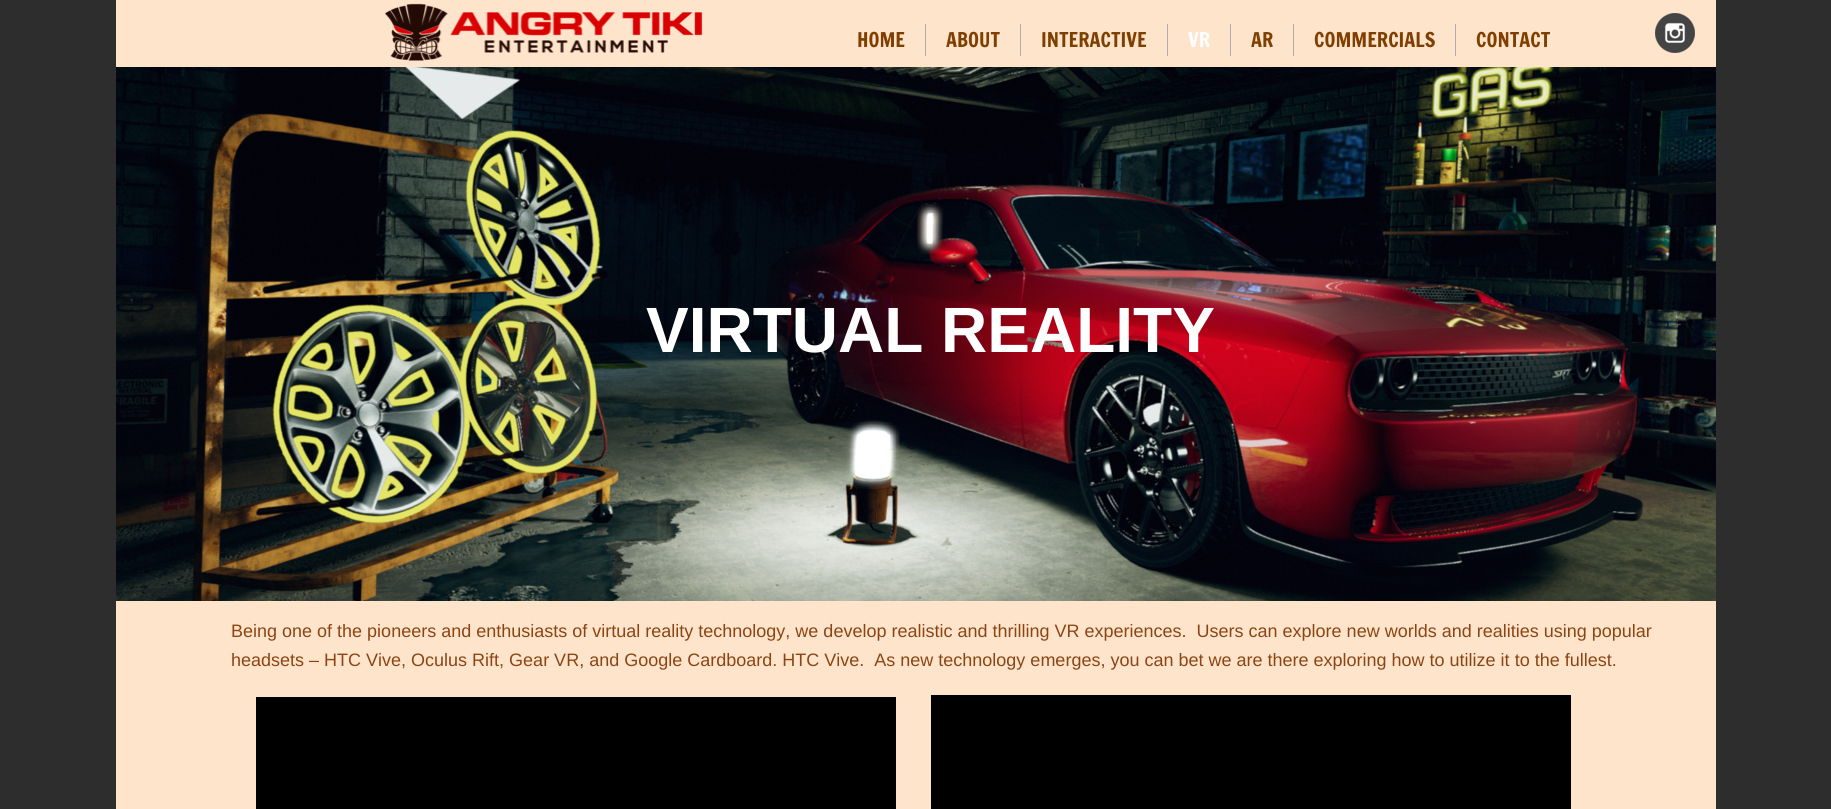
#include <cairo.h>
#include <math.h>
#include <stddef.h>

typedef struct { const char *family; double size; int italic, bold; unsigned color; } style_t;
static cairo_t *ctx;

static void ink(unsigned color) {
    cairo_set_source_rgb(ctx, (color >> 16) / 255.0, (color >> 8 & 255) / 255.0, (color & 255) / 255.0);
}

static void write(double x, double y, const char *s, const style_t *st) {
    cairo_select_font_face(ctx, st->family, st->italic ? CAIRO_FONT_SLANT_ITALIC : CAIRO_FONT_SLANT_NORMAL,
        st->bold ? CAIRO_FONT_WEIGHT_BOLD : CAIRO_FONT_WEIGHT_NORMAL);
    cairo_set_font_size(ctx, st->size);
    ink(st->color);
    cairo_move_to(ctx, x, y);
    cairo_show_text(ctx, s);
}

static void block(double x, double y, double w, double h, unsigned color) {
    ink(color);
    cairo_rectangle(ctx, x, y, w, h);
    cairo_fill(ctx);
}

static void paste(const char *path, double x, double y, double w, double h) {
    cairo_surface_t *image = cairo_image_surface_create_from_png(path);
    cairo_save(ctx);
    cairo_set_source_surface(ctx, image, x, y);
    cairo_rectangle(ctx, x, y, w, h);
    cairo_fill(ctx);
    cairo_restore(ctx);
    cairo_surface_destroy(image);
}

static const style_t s1 = {"Francois One", 20, 0, 0, 0x7f3f00};
static const style_t s2 = {"Francois One", 20, 0, 0, 0xffffff};
static const style_t s3 = {"Liberation Sans", 64, 0, 1, 0xffffff};
static const style_t s4 = {"Liberation Sans", 18, 0, 0, 0x8b4513};

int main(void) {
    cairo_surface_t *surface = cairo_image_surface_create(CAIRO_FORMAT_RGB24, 1831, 809);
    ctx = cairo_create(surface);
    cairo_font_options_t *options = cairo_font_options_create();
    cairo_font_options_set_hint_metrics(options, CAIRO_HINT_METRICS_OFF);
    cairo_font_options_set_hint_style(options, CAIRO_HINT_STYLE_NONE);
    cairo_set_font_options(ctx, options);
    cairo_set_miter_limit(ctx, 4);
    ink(0x2d2d2d);
    cairo_paint(ctx);
    block(116, 0, 1600, 809, 0xffe4cc);
    paste("pic1.png", 384, 3, 319, 58);
    block(925, 24, 1, 32, 0xaeaeae);
    write(857, 47, "HOME", &s1);
    block(1020, 24, 1, 32, 0xaeaeae);
    write(946, 47, "ABOUT", &s1);
    block(1167, 24, 1, 32, 0xaeaeae);
    write(1041, 47, "INTERACTIVE", &s1);
    block(1230, 24, 1, 32, 0xaeaeae);
    write(1188, 47, "VR", &s2);
    block(1293, 24, 1, 32, 0xaeaeae);
    write(1251, 47, "AR", &s1);
    block(1455, 24, 1, 32, 0xaeaeae);
    write(1314, 47, "COMMERCIALS", &s1);
    write(1476, 47, "CONTACT", &s1);
    paste("pic2.png", 1655, 13, 40, 40);
    paste("pic3.png", 116, 67, 1600, 534);
    write(646, 352, "VIRTUAL REALITY", &s3);
    write(231, 637, "Being one of the pioneers and enthusiasts of virtual reality technology, we develop realistic and thrilling VR experiences.  Users can explore new worlds and realities using popular", &s4);
    write(231, 666, "headsets – HTC Vive, Oculus Rift, Gear VR, and Google Cardboard. HTC Vive.  As new technology emerges, you can bet we are there exploring how to utilize it to the fullest.", &s4);
    block(256, 697, 640, 112, 0x000000);
    block(931, 695, 640, 114, 0x000000);
    cairo_surface_write_to_png(surface, "screenshot.png");
    cairo_font_options_destroy(options);
    cairo_destroy(ctx);
    cairo_surface_destroy(surface);
    return 0;
}
